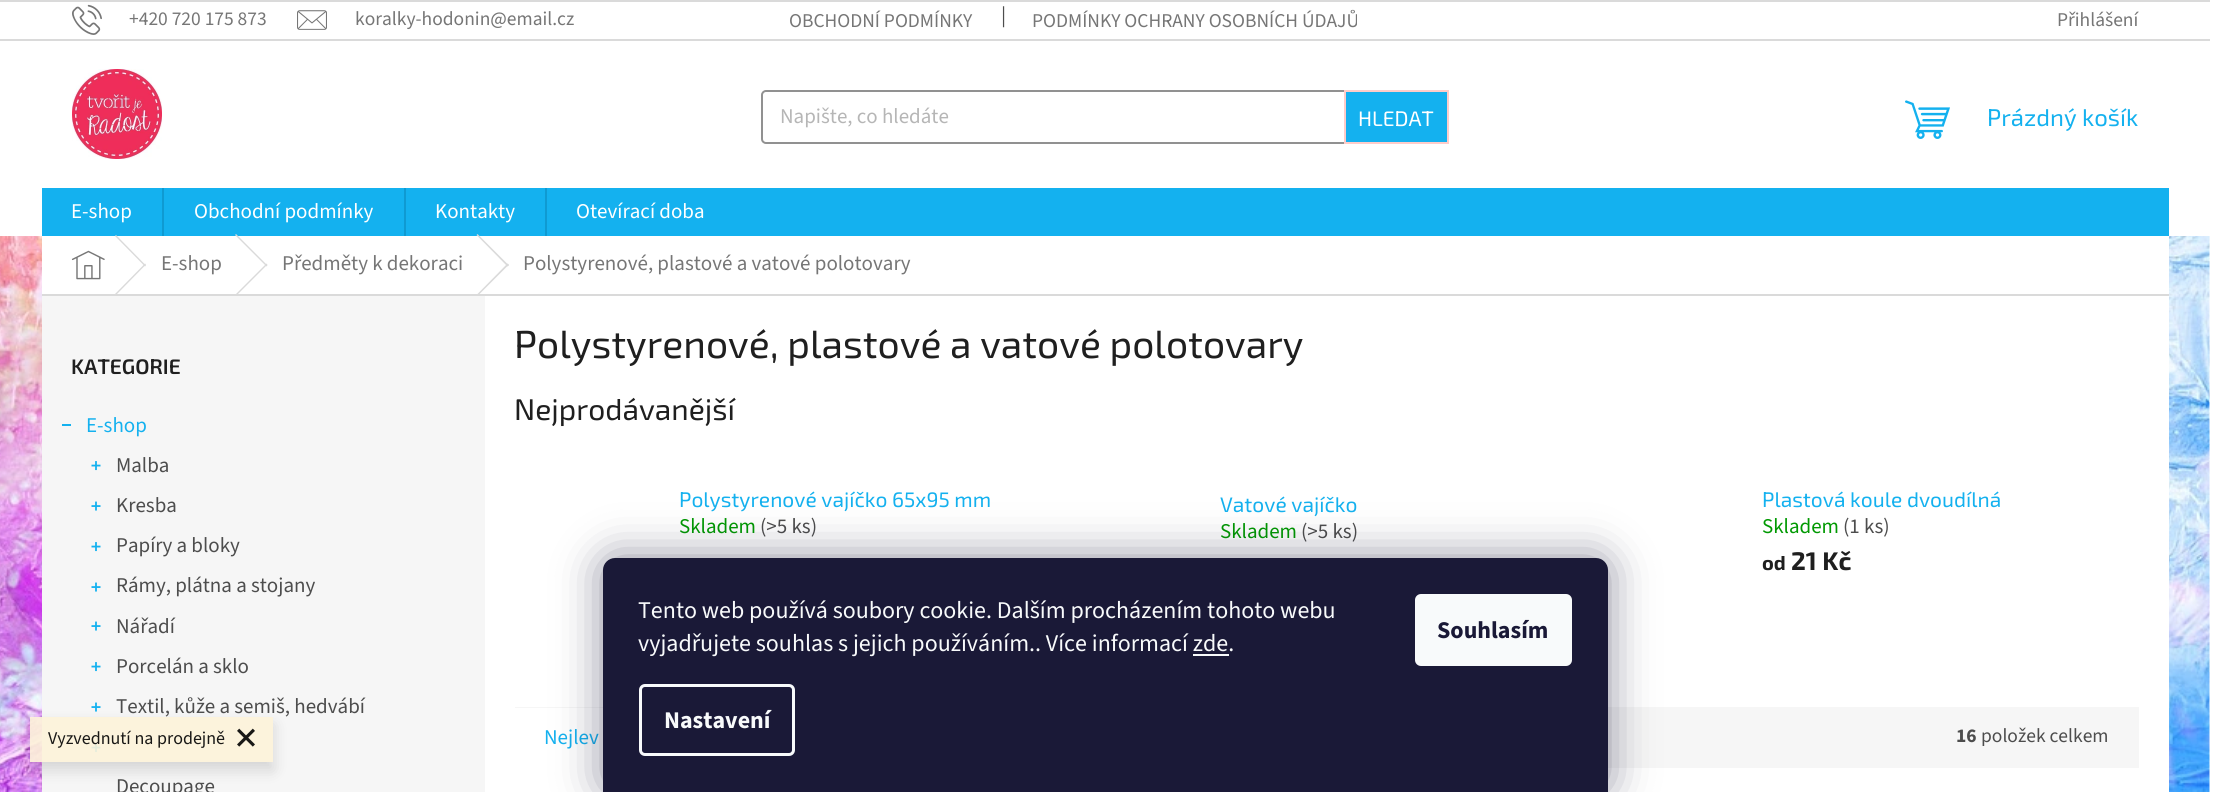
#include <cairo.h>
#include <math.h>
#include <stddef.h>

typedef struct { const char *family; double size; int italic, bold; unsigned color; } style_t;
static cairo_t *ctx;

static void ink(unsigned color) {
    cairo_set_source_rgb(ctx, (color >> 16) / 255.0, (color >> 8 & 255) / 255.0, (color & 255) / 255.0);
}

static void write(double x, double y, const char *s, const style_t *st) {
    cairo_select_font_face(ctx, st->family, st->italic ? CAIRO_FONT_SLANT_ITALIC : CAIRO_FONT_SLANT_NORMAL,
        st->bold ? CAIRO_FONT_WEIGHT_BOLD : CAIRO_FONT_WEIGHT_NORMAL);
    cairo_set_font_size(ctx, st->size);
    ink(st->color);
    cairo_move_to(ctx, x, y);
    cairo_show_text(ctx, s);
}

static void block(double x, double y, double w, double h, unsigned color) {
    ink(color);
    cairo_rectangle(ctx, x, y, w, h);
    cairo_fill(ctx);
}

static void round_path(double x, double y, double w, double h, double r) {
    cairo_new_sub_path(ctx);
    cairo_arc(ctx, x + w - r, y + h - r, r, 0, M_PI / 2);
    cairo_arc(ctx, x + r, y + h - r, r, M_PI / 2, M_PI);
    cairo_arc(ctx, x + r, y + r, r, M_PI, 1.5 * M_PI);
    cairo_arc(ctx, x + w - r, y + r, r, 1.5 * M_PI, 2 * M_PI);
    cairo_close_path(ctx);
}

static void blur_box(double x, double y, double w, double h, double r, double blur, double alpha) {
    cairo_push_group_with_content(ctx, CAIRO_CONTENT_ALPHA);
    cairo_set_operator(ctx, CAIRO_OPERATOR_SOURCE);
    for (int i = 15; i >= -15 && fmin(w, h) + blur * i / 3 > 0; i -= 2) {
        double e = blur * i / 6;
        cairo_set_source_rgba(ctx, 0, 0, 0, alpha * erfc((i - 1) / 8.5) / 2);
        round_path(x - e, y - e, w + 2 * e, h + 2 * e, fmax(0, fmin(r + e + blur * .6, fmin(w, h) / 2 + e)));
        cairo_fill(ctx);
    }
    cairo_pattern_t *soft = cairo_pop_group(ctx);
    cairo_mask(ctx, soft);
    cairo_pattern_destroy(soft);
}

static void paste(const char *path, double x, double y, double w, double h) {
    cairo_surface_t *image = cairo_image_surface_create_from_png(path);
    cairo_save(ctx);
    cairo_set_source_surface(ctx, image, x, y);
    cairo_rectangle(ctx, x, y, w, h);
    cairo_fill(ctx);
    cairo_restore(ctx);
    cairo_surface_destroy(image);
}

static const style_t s1 = {"Source Sans 3", 19.5, 0, 0, 0x767676};
static const style_t s2 = {"Source Sans 3", 21, 0, 0, 0x4d4d4d};
static const style_t s3 = {"Source Sans 3", 21, 0, 0, 0xb6b6b6};
static const style_t s4 = {"Exo 2", 21, 0, 0, 0xffffff};
static const style_t s5 = {"Exo 2", 24, 0, 0, 0x14b1ef};
static const style_t s6 = {"Source Sans 3", 21, 0, 0, 0xffffff};
static const style_t s7 = {"Source Sans 3", 21, 0, 0, 0x767676};
static const style_t s8 = {"Exo 2 SemiBold", 21, 0, 0, 0x1f1f1f};
static const style_t s9 = {"Source Sans 3", 21, 0, 0, 0x14b1ef};
static const style_t s10 = {"Exo 2", 39, 0, 0, 0x1f1f1f};
static const style_t s11 = {"Exo 2", 30, 0, 0, 0x1f1f1f};
static const style_t s12 = {"Exo 2", 21, 0, 0, 0x14b1ef};
static const style_t s13 = {"Source Sans 3", 21, 0, 0, 0x009901};
static const style_t s14 = {"Exo 2", 20, 0, 1, 0x1f1f1f};
static const style_t s15 = {"Exo 2", 25.5, 0, 1, 0x1f1f1f};
static const style_t s16 = {"Source Sans 3", 19.5, 0, 1, 0x4d4d4d};
static const style_t s17 = {"Source Sans 3", 19.5, 0, 0, 0x4d4d4d};
static const style_t s18 = {"Source Sans 3", 18, 0, 0, 0x191816};
static const style_t s19 = {"Source Sans 3", 24, 0, 0, 0xf8fafb};
static const style_t s20 = {"Source Sans 3", 24, 0, 1, 0xf8fafb};
static const style_t s21 = {"Source Sans 3", 24, 0, 1, 0x1a1937};

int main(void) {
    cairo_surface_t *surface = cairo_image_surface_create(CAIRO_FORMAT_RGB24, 2231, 792);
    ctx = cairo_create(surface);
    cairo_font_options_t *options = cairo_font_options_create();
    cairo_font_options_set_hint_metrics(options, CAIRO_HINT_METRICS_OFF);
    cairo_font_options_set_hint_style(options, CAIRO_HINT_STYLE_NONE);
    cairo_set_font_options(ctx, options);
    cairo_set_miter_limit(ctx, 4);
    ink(0xffffff);
    cairo_paint(ctx);
    paste("pic1.png", 0, 236, 2210, 556);
    block(0, 0, 2210, 2, 0xdadada);
    block(0, 39, 2210, 2, 0xdadada);
    paste("pic2.png", 72, 4, 30, 31);
    write(129, 25, "+420 720 175 873", &s1);
    paste("pic3.png", 297, 10, 30, 20);
    write(355, 25, "koralky-hodonin@email.cz", &s1);
    write(789, 27, "OBCHODNÍ PODMÍNKY", &s1);
    write(1001, 22, "|", &s2);
    write(1032, 27, "PODMÍNKY OCHRANY OSOBNÍCH ÚDAJŮ", &s1);
    write(2057, 26, "Přihlášení", &s1);
    paste("pic4.png", 72, 69, 90, 90);
    round_path(762, 91, 686, 52, 4);
    ink(0x919191);
    cairo_stroke(ctx);
    write(780, 123, "Napište, co hledáte", &s3);
    ink(0x14b1ef);
    cairo_rectangle(ctx, 1345, 91, 103, 52);
    cairo_fill_preserve(ctx);
    ink(0xffccc9);
    cairo_stroke(ctx);
    write(1358, 126, "HLEDAT", &s4);
    paste("pic5.png", 1905, 100, 45, 39);
    write(1987, 126, "Prázdný košík", &s5);
    block(42, 188, 2127, 48, 0x14b1ef);
    write(71, 218, "E-shop", &s6);
    block(162, 188, 2, 48, 0x0f9ad2);
    write(194, 218, "Obchodní podmínky", &s6);
    block(404, 188, 2, 48, 0x0f9ad2);
    write(435, 218, "Kontakty", &s6);
    block(545, 188, 2, 48, 0x0f9ad2);
    write(576, 218, "Otevírací doba", &s6);
    block(42, 236, 2127, 58, 0xffffff);
    block(42, 294, 2127, 2, 0xdadada);
    paste("pic6.png", 71, 250, 34, 30);
    cairo_new_path(ctx);
    cairo_move_to(ctx, 115, 236);
    cairo_line_to(ctx, 116, 235);
    cairo_line_to(ctx, 146, 265.5);
    cairo_line_to(ctx, 145, 266.5);
    cairo_close_path(ctx);
    cairo_fill(ctx);
    cairo_new_path(ctx);
    cairo_move_to(ctx, 145, 263.5);
    cairo_line_to(ctx, 146, 264.5);
    cairo_line_to(ctx, 116, 295);
    cairo_line_to(ctx, 115, 294);
    cairo_close_path(ctx);
    cairo_fill(ctx);
    write(161, 270, "E-shop", &s7);
    ink(0xdadada);
    cairo_new_path(ctx);
    cairo_move_to(ctx, 235, 235);
    cairo_line_to(ctx, 236, 234);
    cairo_line_to(ctx, 267.5, 265.5);
    cairo_line_to(ctx, 266.5, 266.5);
    cairo_close_path(ctx);
    cairo_fill(ctx);
    cairo_new_path(ctx);
    cairo_move_to(ctx, 266.5, 263.5);
    cairo_line_to(ctx, 267.5, 264.5);
    cairo_line_to(ctx, 236, 296);
    cairo_line_to(ctx, 235, 295);
    cairo_close_path(ctx);
    cairo_fill(ctx);
    write(282, 270, "Předměty k dekoraci", &s7);
    ink(0xdadada);
    cairo_new_path(ctx);
    cairo_move_to(ctx, 476.5, 235);
    cairo_line_to(ctx, 477.5, 234);
    cairo_line_to(ctx, 509, 265.5);
    cairo_line_to(ctx, 507.5, 266.5);
    cairo_close_path(ctx);
    cairo_fill(ctx);
    cairo_new_path(ctx);
    cairo_move_to(ctx, 507.5, 263.5);
    cairo_line_to(ctx, 509, 264.5);
    cairo_line_to(ctx, 477.5, 296);
    cairo_line_to(ctx, 476.5, 295);
    cairo_close_path(ctx);
    cairo_fill(ctx);
    write(523, 270, "Polystyrenové, plastové a vatové polotovary", &s7);
    block(485, 296, 1684, 496, 0xffffff);
    block(42, 296, 443, 496, 0xf6f6f6);
    write(71, 374, "KATEGORIE", &s8);
    block(62, 424, 9, 2, 0x14b1ef);
    write(86, 432, "E-shop", &s9);
    paste("pic7.png", 91, 461, 10, 10);
    write(116, 472, "Malba", &s2);
    paste("pic8.png", 91, 501, 10, 10);
    write(116, 512, "Kresba", &s2);
    paste("pic7.png", 91, 542, 10, 10);
    write(116, 552, "Papíry a bloky", &s2);
    paste("pic8.png", 91, 582, 10, 10);
    write(116, 592, "Rámy, plátna a stojany", &s2);
    paste("pic8.png", 91, 621, 10, 10);
    write(116, 633, "Nářadí", &s2);
    paste("pic7.png", 91, 662, 10, 10);
    write(116, 673, "Porcelán a sklo", &s2);
    paste("pic8.png", 91, 702, 10, 10);
    write(116, 713, "Textil, kůže a semiš, hedvábí", &s2);
    paste("pic7.png", 91, 743, 10, 10);
    write(116, 793, "Decoupage", &s2);
    write(514, 358, "Polystyrenové, plastové a vatové polotovary", &s10);
    write(514, 420, "Nejprodávanější", &s11);
    write(679, 507, "Polystyrenové vajíčko 65x95 mm", &s12);
    write(679, 533, "Skladem", &s13);
    write(760, 533, "(>5 ks)", &s2);
    write(1220, 512, "Vatové vajíčko", &s12);
    write(1220, 538, "Skladem", &s13);
    write(1301, 538, "(>5 ks)", &s2);
    write(1762, 507, "Plastová koule dvoudílná", &s12);
    write(1762, 533, "Skladem", &s13);
    write(1843, 533, "(1 ks)", &s2);
    write(1762, 570, "od", &s14);
    write(1791, 570, "21 Kč", &s15);
    block(515, 707, 1624, 61, 0xf6f6f6);
    block(515, 708, 88, 60, 0xffffff);
    write(544, 744, "Nejlev", &s9);
    write(1956, 742, "16", &s16);
    write(1981, 742, "položek celkem", &s17);
    cairo_save(ctx);
    cairo_set_fill_rule(ctx, CAIRO_FILL_RULE_EVEN_ODD);
    cairo_new_path(ctx);
    cairo_move_to(ctx, 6, 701);
    cairo_line_to(ctx, 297, 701);
    cairo_line_to(ctx, 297, 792);
    cairo_line_to(ctx, 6, 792);
    cairo_close_path(ctx);
    cairo_move_to(ctx, 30, 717);
    cairo_line_to(ctx, 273, 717);
    cairo_line_to(ctx, 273, 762);
    cairo_line_to(ctx, 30, 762);
    cairo_close_path(ctx);
    cairo_clip(ctx);
    ink(0x000000);
    blur_box(30, 725, 243, 45, 0, 7.5, 0.14);
    cairo_restore(ctx);
    cairo_set_source_rgba(ctx, 0.992, 0.953, 0.855, 0.9);
    cairo_rectangle(ctx, 30, 717, 243, 45);
    cairo_fill(ctx);
    write(48, 744, "Vyzvednutí na prodejně", &s18);
    paste("pic9.png", 237, 728, 18, 19);
    ink(0x1b1939);
    blur_box(603, 558, 1005, 234, 12, 22.5, 0.5);
    ink(0x1a1937);
    cairo_new_path(ctx);
    cairo_move_to(ctx, 615, 558);
    cairo_line_to(ctx, 1596, 558);
    cairo_curve_to(ctx, 1602.5, 558, 1608, 563.5, 1608, 570);
    cairo_line_to(ctx, 1608, 792);
    cairo_line_to(ctx, 603, 792);
    cairo_line_to(ctx, 603, 570);
    cairo_curve_to(ctx, 603, 563.5, 608.5, 558, 615, 558);
    cairo_close_path(ctx);
    cairo_fill(ctx);
    write(638, 618, "Tento web používá soubory cookie. Dalším procházením tohoto webu", &s19);
    write(638, 651, "vyjadřujete souhlas s jejich používáním.. Více informací zde.", &s19);
    block(1193, 654, 36, 2, 0xf8fafb);
    round_path(640.5, 685.5, 153, 69, 4.5);
    cairo_set_line_width(ctx, 3);
    cairo_stroke(ctx);
    write(664, 728, "Nastavení", &s20);
    round_path(1415, 594, 157, 72, 6);
    cairo_fill(ctx);
    write(1437, 638, "Souhlasím", &s21);
    cairo_surface_write_to_png(surface, "screenshot.png");
    cairo_font_options_destroy(options);
    cairo_destroy(ctx);
    cairo_surface_destroy(surface);
    return 0;
}
